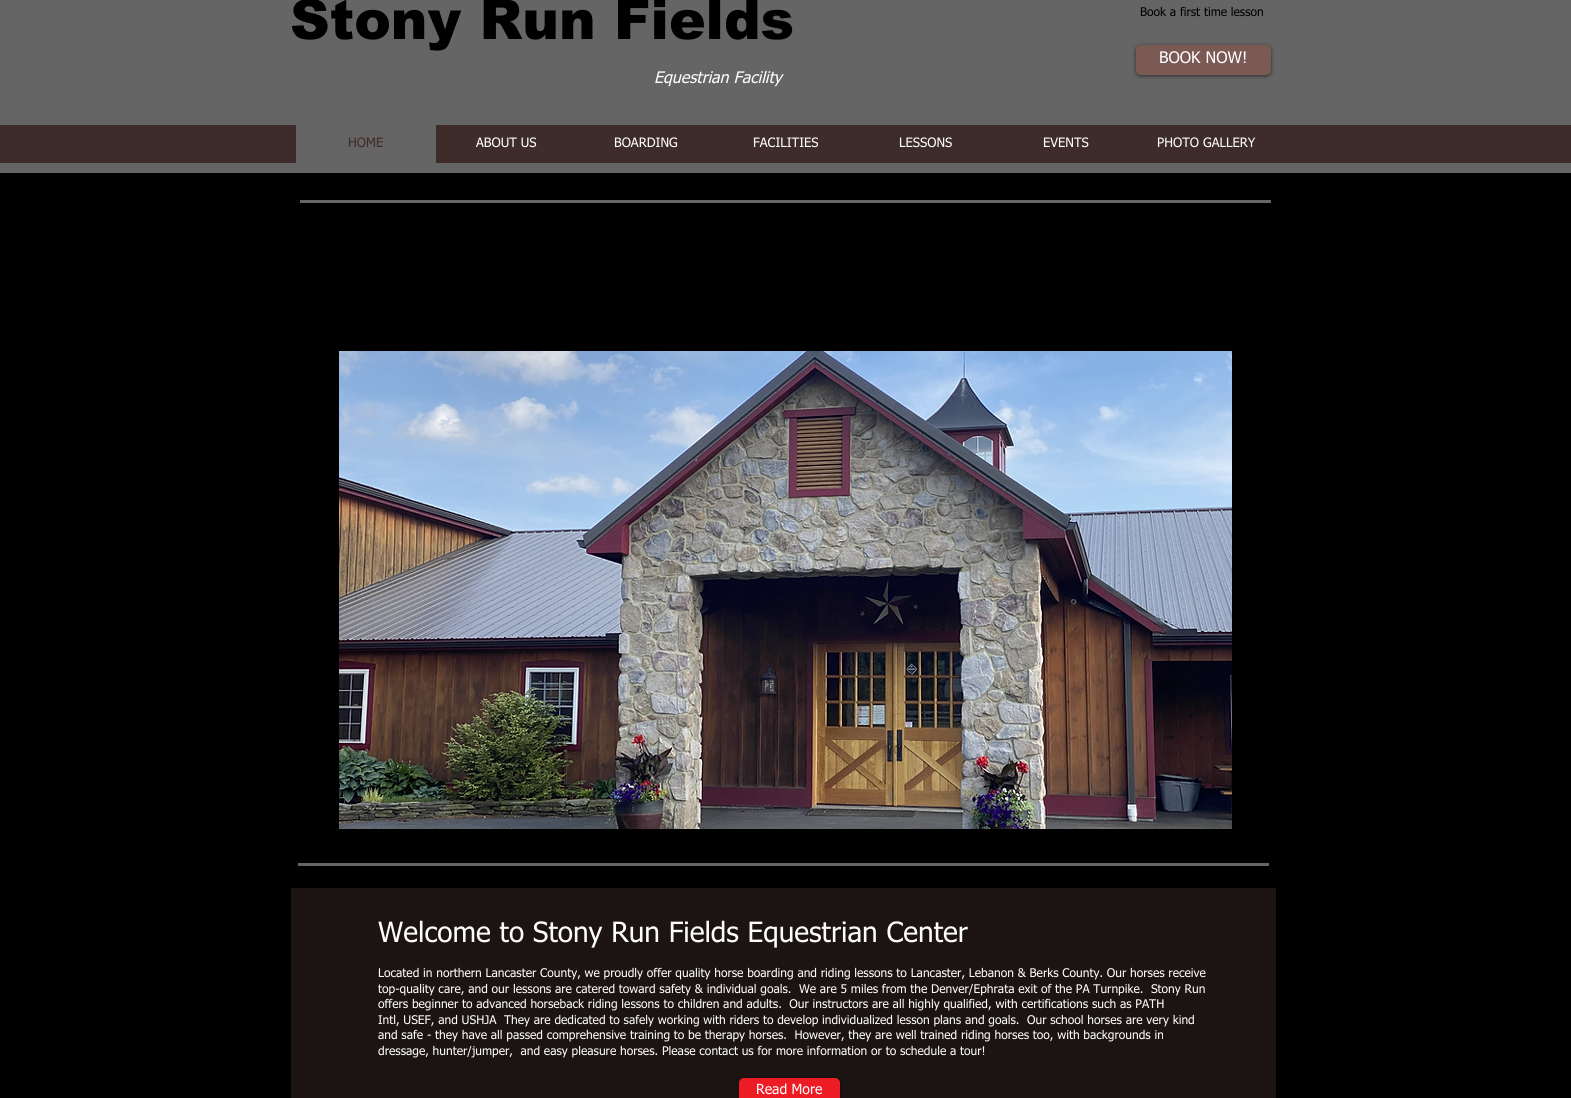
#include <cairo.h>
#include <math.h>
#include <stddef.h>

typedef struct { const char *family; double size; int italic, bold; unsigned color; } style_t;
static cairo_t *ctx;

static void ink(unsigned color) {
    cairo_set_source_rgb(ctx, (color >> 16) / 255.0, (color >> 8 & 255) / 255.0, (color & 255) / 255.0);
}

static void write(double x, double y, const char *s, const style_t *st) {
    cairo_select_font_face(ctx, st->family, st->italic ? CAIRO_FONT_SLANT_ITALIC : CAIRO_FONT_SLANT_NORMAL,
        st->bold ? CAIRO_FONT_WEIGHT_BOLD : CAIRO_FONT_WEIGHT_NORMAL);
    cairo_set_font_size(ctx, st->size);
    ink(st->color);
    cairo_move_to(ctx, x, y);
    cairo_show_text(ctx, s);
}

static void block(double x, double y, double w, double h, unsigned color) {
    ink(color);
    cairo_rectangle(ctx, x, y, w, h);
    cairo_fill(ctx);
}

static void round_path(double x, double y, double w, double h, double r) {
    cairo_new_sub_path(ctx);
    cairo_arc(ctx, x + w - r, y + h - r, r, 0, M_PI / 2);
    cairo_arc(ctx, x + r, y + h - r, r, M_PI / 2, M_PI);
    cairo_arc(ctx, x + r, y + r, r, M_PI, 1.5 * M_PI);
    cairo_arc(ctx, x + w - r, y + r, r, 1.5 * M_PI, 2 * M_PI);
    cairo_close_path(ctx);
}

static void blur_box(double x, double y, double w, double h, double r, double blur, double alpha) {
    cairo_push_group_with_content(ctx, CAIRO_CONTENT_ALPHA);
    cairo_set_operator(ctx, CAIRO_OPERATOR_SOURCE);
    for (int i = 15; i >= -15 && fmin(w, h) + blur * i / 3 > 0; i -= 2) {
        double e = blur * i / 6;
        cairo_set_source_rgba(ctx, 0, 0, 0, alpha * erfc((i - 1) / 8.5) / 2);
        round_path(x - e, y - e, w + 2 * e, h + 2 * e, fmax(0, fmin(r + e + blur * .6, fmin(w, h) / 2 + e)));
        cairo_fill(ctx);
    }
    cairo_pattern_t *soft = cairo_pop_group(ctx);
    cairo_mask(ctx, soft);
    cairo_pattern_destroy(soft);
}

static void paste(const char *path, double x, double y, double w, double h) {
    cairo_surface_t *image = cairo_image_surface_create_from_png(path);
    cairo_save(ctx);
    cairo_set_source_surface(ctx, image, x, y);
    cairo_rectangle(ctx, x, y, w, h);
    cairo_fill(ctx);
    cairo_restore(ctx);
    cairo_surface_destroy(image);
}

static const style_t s1 = {"arial Black", 55, 0, 0, 0x000000};
static const style_t s2 = {"tahoma", 12, 0, 0, 0x000000};
static const style_t s3 = {"tahoma", 16, 0, 0, 0xfefdfd};
static const style_t s4 = {"tahoma", 16, 1, 0, 0xfefdfd};
static const style_t s5 = {"tahoma", 13, 0, 0, 0x3d2c2a};
static const style_t s6 = {"tahoma", 13, 0, 0, 0xfefdfd};
static const style_t s7 = {"tahoma", 28, 0, 0, 0xfefdfd};
static const style_t s8 = {"tahoma", 12, 0, 0, 0xfefdfd};
static const style_t s9 = {"tahoma", 14, 0, 0, 0xfefdfd};

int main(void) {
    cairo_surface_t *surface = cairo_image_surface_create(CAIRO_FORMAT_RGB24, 1571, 1098);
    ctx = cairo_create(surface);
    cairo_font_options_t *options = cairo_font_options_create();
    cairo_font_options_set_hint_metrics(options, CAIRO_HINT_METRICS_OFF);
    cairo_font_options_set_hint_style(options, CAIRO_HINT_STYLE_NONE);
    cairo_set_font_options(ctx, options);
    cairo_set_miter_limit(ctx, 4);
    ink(0x000000);
    cairo_paint(ctx);
    block(0, 0, 1571, 173, 0x656565);
    write(290, 39, "Stony Run Fields", &s1);
    write(1140, 16, "Book a first time lesson", &s2);
    ink(0x000000);
    blur_box(1136, 46, 135, 30, 5, 2, 0.6);
    ink(0x7b5955);
    round_path(1136, 45, 135, 30, 5);
    cairo_fill(ctx);
    write(1159, 63, "BOOK NOW!", &s3);
    write(654, 83, "Equestrian Facility", &s4);
    block(0, 125, 1571, 38, 0x3d2c2a);
    block(296, 125, 140, 38, 0x656565);
    write(348, 147, "HOME", &s5);
    write(476, 147, "ABOUT US", &s6);
    write(614, 147, "BOARDING", &s6);
    write(753, 147, "FACILITIES", &s6);
    write(899, 147, "LESSONS", &s6);
    write(1043, 147, "EVENTS", &s6);
    write(1157, 147, "PHOTO GALLERY", &s6);
    block(300, 200, 971, 3, 0x656565);
    paste("pic1.png", 339, 351, 893, 478);
    block(298, 863, 971, 3, 0x656565);
    block(291, 888, 985, 210, 0x1b1413);
    write(378, 942, "Welcome to Stony Run Fields Equestrian Center", &s7);
    write(378, 977, "Located in northern Lancaster County, we proudly offer quality horse boarding and riding lessons to Lancaster, Lebanon & Berks County. Our horses receive", &s8);
    write(378, 993, "top-quality care, and our lessons are catered toward safety & individual goals.  We are 5 miles from the Denver/Ephrata exit of the PA Turnpike.  Stony Run", &s8);
    write(378, 1008, "offers beginner to advanced horseback riding lessons to children and adults.  Our instructors are all highly qualified, with certifications such as PATH", &s8);
    write(378, 1024, "Intl, USEF, and USHJA  They are dedicated to safely working with riders to develop individualized lesson plans and goals.  Our school horses are very kind", &s8);
    write(378, 1039, "and safe - they have all passed comprehensive training to be therapy horses.  However, they are well trained riding horses too, with backgrounds in", &s8);
    write(378, 1055, "dressage, hunter/jumper,  and easy pleasure horses. Please contact us for more information or to schedule a tour!", &s8);
    ink(0x000000);
    blur_box(739, 1079, 101, 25, 5, 2, 0.6);
    ink(0xed1c24);
    round_path(739, 1078, 101, 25, 5);
    cairo_fill(ctx);
    write(756, 1094, "Read More", &s9);
    cairo_surface_write_to_png(surface, "screenshot.png");
    cairo_font_options_destroy(options);
    cairo_destroy(ctx);
    cairo_surface_destroy(surface);
    return 0;
}
